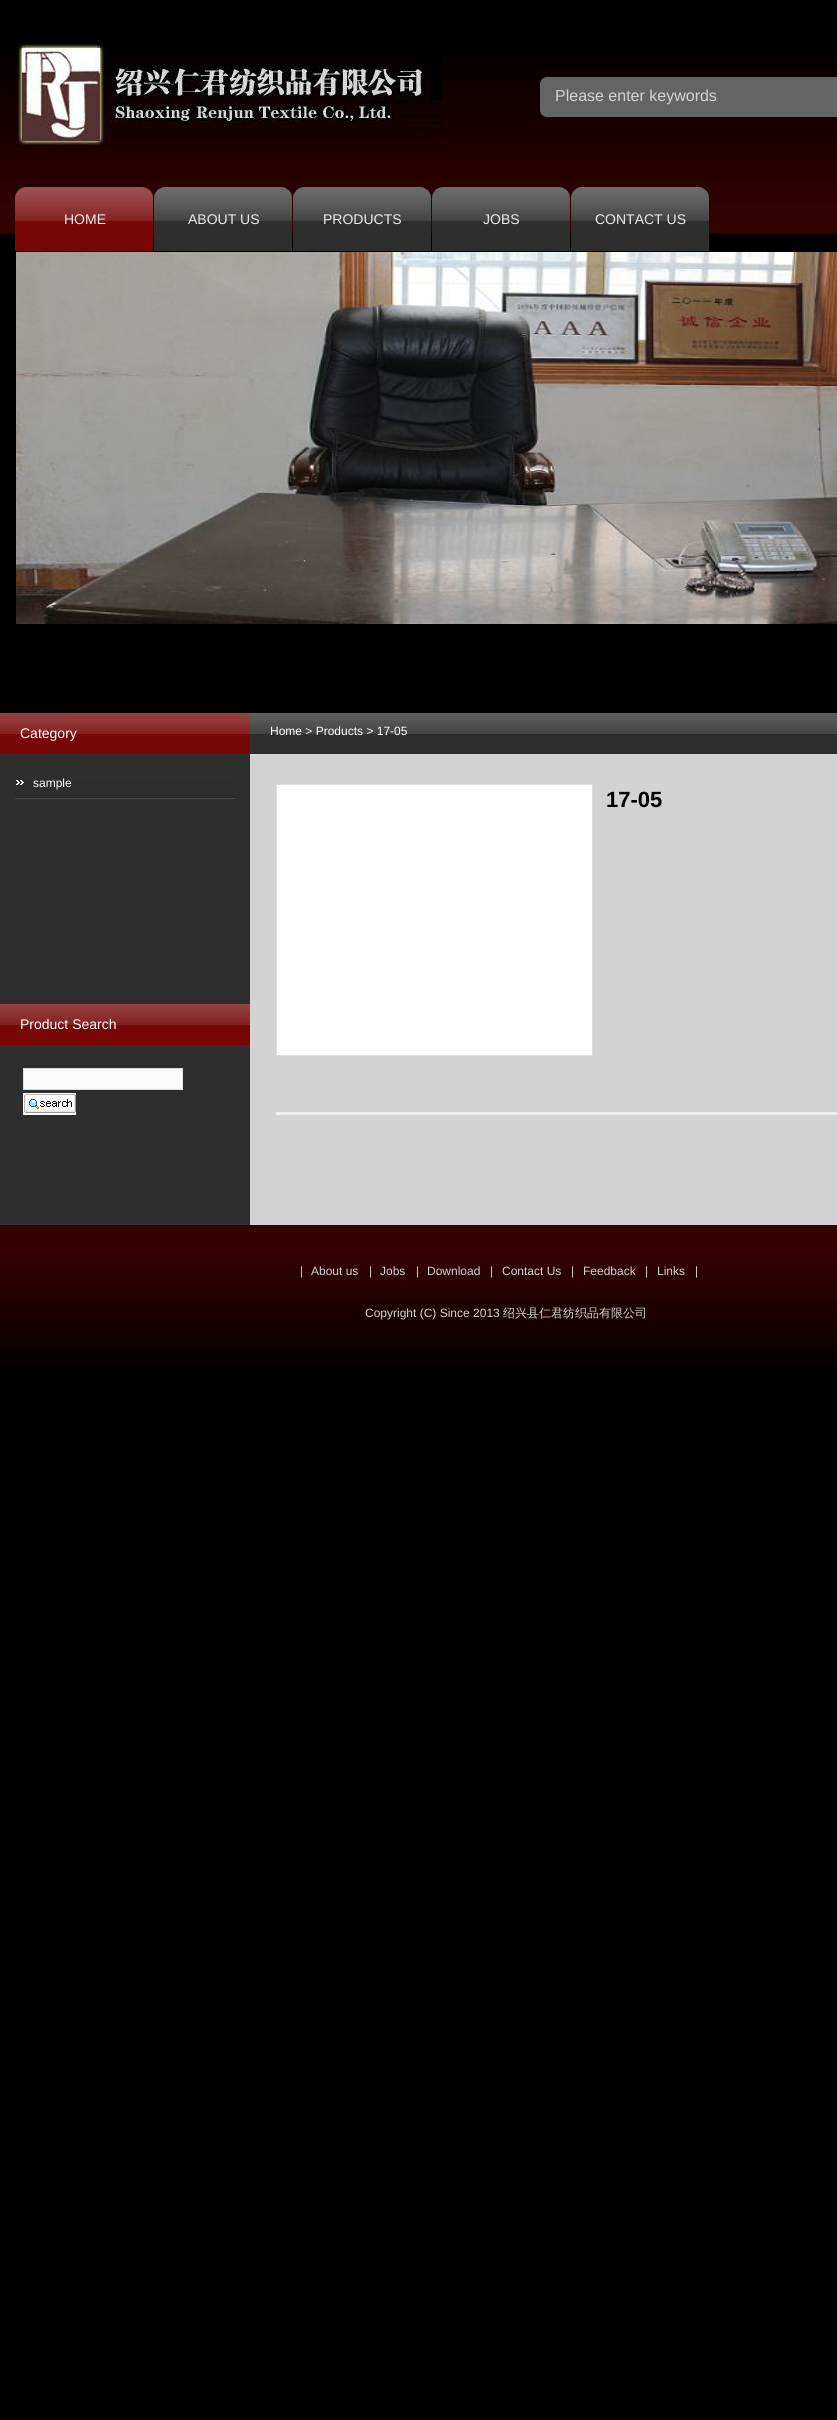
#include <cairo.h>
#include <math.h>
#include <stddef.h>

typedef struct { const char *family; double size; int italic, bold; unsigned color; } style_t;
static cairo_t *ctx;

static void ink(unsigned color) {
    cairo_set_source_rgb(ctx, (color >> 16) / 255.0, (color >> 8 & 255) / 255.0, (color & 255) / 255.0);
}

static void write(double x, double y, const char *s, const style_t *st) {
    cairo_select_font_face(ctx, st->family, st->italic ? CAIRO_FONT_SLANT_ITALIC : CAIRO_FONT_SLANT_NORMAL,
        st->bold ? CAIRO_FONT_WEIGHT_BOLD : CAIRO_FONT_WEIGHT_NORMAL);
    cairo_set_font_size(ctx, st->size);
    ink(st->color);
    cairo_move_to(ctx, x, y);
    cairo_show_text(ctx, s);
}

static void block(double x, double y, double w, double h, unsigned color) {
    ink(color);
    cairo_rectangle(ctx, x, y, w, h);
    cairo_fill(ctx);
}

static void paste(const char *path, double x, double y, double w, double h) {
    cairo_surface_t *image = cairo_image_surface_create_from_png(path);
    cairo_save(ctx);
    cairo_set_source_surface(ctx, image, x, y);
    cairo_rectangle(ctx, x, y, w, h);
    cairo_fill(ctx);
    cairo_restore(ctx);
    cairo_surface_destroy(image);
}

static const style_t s1 = {"Liberation Sans", 16, 0, 0, 0xd3d3d3};
static const style_t s2 = {"Liberation Sans", 14, 0, 0, 0xebebea};
static const style_t s3 = {"Liberation Sans", 14, 0, 0, 0xffffff};
static const style_t s4 = {"Liberation Sans", 12, 0, 0, 0xffffff};
static const style_t s5 = {"Liberation Sans", 22, 0, 1, 0x000000};
static const style_t s6 = {"Liberation Sans", 12, 0, 0, 0xd3d3d3};
static const style_t s7 = {"WenQuanYi Zen Hei Medium", 12, 0, 0, 0xd3d3d3};

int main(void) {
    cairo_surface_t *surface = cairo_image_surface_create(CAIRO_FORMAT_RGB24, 837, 2420);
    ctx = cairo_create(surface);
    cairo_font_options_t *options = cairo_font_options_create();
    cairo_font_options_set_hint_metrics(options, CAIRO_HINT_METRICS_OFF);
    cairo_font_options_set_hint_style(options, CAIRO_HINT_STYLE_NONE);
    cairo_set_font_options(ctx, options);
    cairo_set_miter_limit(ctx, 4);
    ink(0x000000);
    cairo_paint(ctx);
    paste("pic1.png", 0, 54, 837, 179);
    paste("pic2.png", 15, 40, 427, 107);
    paste("pic3.png", 540, 76, 297, 41);
    write(555, 101, "Please enter keywords", &s1);
    paste("pic4.png", 15, 187, 138, 64);
    write(64, 224, "HOME", &s2);
    paste("pic5.png", 154, 187, 138, 64);
    write(188, 224, "ABOUT US", &s2);
    paste("pic5.png", 293, 187, 138, 64);
    write(323, 224, "PRODUCTS", &s2);
    paste("pic5.png", 432, 187, 138, 64);
    write(483, 224, "JOBS", &s2);
    paste("pic5.png", 571, 187, 138, 64);
    write(595, 224, "CONTACT US", &s2);
    paste("pic6.png", 16, 252, 821, 372);
    paste("pic7.png", 0, 754, 837, 471);
    paste("pic8.png", 0, 713, 250, 41);
    write(20, 738, "Category", &s3);
    paste("pic9.png", 15, 780, 220, 19);
    write(33, 787, "sample", &s4);
    paste("pic10.png", 250, 713, 587, 41);
    write(270, 735, "Home > Products > 17-05", &s4);
    cairo_rectangle(ctx, 276.5, 784.5, 316, 271);
    cairo_fill_preserve(ctx);
    ink(0xdddddd);
    cairo_set_line_width(ctx, 1);
    cairo_stroke(ctx);
    write(606, 807, "17-05", &s5);
    block(276, 1112, 561, 3, 0xeeeeee);
    paste("pic8.png", 0, 1004, 250, 41);
    write(20, 1029, "Product Search", &s3);
    ink(0xfbfbfb);
    cairo_rectangle(ctx, 23.5, 1068.5, 159, 21);
    cairo_fill_preserve(ctx);
    ink(0xdddddd);
    cairo_stroke(ctx);
    paste("pic11.png", 23, 1093, 53, 22);
    paste("pic12.png", 0, 1225, 837, 142);
    write(300, 1275, "|", &s6);
    write(311, 1275, "About us", &s6);
    write(369, 1275, "|", &s6);
    write(380, 1275, "Jobs", &s6);
    write(416, 1275, "|", &s6);
    write(427, 1275, "Download", &s6);
    write(490, 1275, "|", &s6);
    write(502, 1275, "Contact Us", &s6);
    write(571, 1275, "|", &s6);
    write(583, 1275, "Feedback", &s6);
    write(645, 1275, "|", &s6);
    write(657, 1275, "Links", &s6);
    write(695, 1275, "|", &s6);
    write(365, 1317, "Copyright (C) Since 2013", &s6);
    write(503, 1317, "绍兴县仁君纺织品有限公司", &s7);
    cairo_surface_write_to_png(surface, "screenshot.png");
    cairo_font_options_destroy(options);
    cairo_destroy(ctx);
    cairo_surface_destroy(surface);
    return 0;
}
